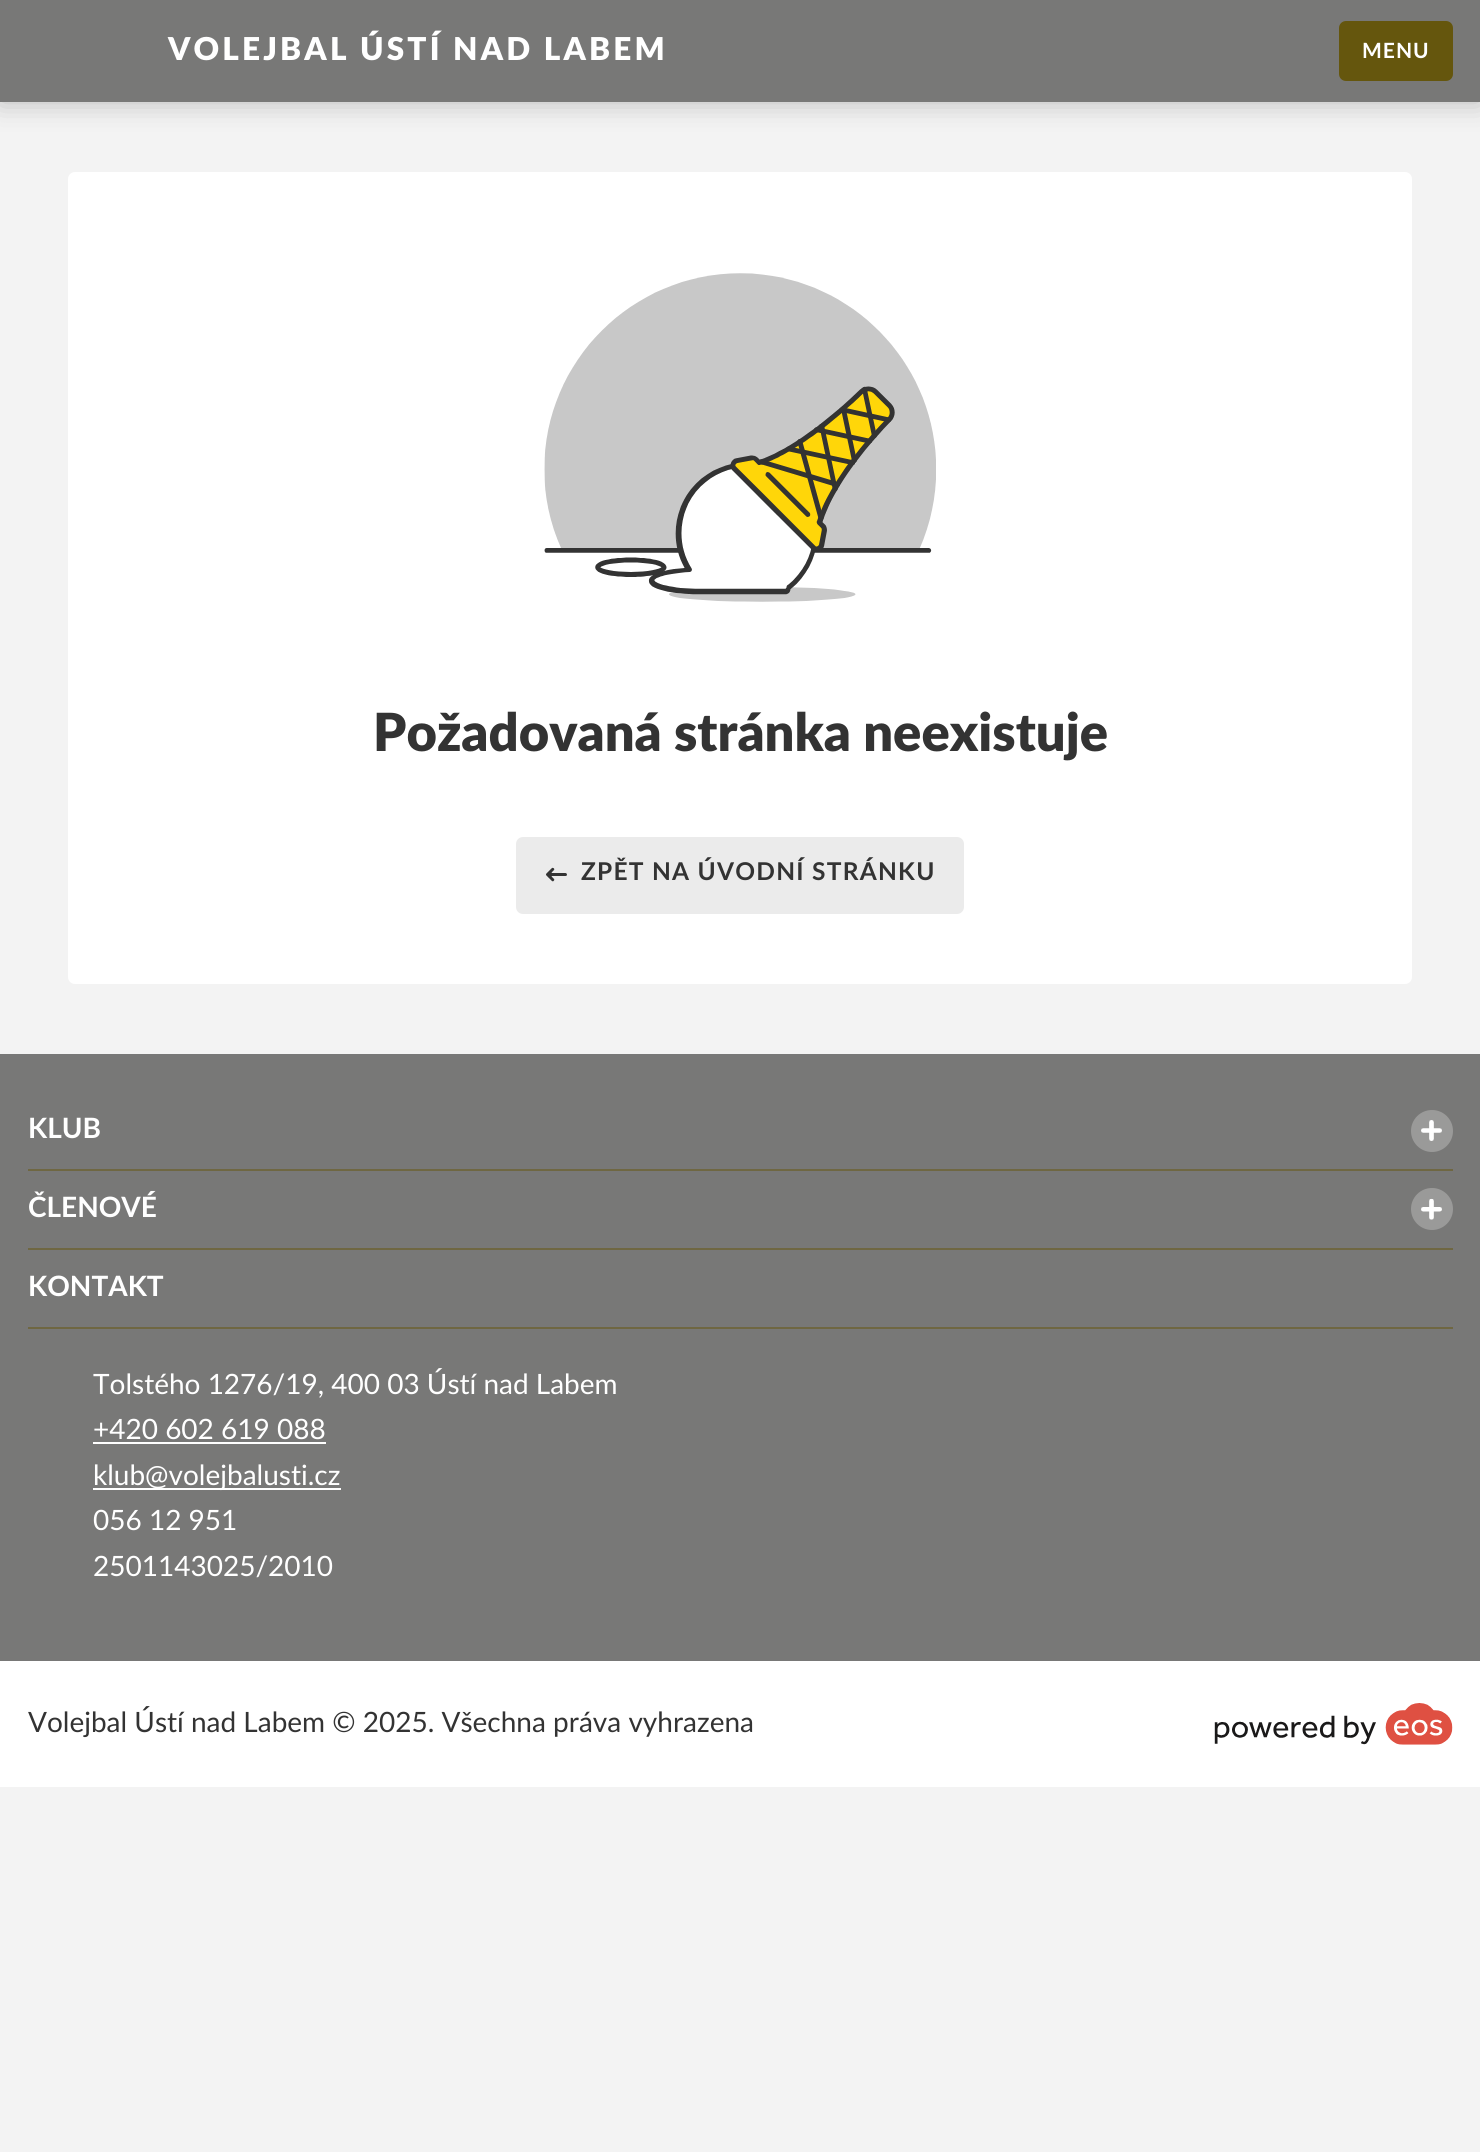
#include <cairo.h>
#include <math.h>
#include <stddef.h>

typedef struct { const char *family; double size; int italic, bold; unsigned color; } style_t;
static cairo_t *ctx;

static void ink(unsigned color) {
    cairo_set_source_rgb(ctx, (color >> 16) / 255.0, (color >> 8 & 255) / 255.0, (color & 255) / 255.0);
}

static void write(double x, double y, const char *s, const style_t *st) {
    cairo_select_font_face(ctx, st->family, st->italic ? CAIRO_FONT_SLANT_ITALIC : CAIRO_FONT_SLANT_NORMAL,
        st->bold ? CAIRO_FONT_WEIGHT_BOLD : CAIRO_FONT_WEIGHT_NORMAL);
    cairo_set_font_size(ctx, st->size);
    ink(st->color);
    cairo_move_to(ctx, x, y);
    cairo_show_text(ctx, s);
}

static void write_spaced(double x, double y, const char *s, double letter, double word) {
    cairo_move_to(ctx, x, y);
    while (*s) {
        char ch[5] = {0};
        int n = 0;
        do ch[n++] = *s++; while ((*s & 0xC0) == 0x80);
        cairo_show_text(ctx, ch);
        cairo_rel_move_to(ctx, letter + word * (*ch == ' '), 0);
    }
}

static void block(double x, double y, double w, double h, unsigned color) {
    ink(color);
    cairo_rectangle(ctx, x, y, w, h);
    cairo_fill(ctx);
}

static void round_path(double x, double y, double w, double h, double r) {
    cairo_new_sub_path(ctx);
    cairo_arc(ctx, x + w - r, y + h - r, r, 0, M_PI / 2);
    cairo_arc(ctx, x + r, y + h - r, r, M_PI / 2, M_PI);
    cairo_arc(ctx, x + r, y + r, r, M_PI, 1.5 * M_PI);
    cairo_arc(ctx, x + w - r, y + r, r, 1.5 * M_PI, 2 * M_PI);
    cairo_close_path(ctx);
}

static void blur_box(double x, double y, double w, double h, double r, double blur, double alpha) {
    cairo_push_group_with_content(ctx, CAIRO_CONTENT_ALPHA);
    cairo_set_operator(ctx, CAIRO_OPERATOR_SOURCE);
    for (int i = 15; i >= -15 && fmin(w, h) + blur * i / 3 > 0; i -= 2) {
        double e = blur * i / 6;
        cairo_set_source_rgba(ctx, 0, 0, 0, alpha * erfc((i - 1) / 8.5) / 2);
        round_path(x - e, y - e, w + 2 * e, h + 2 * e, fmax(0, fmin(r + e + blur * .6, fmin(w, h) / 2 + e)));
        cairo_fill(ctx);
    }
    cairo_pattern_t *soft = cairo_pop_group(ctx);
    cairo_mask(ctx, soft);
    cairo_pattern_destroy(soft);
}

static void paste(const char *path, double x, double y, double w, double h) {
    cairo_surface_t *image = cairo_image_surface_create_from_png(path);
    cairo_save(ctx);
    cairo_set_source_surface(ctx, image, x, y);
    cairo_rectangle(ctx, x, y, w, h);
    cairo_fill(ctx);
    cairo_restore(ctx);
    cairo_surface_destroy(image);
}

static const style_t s1 = {"Lato Black", 52.5, 0, 0, 0x333333};
static const style_t s2 = {"Lato", 28, 0, 1, 0xffffff};
static const style_t s3 = {"Lato", 28, 0, 0, 0xffffff};
static const style_t s4 = {"Lato", 28, 0, 0, 0x333333};

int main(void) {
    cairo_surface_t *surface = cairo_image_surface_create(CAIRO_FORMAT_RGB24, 1480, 2152);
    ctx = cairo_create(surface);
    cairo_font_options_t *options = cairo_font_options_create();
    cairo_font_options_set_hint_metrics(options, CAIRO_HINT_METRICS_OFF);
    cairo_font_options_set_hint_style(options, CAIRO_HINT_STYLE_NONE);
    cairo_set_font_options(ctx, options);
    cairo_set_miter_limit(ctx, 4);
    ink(0xf3f3f3);
    cairo_paint(ctx);
    ink(0x000000);
    blur_box(0, 0, 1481, 102, 0, 14, 0.25);
    block(0, 0, 1480, 102, 0x787877);
    cairo_select_font_face(ctx, "Lato Black", CAIRO_FONT_SLANT_NORMAL, CAIRO_FONT_WEIGHT_NORMAL);
    cairo_set_font_size(ctx, 31.5);
    ink(0xffffff);
    write_spaced(168, 60, "VOLEJBAL ÚSTÍ NAD LABEM", 3.15, 0);
    ink(0x65560d);
    round_path(1339, 21, 114, 60, 7);
    cairo_fill(ctx);
    cairo_select_font_face(ctx, "Lato", CAIRO_FONT_SLANT_NORMAL, CAIRO_FONT_WEIGHT_BOLD);
    cairo_set_font_size(ctx, 21);
    ink(0xffffff);
    write_spaced(1362, 58, "MENU", 1, 0);
    round_path(68, 172, 1344, 812, 7);
    cairo_fill(ctx);
    paste("pic1.png", 544, 273, 392, 329);
    write(373, 751, "Požadovaná stránka neexistuje", &s1);
    ink(0xebebeb);
    round_path(516, 837, 448, 77, 7);
    cairo_fill(ctx);
    paste("pic2.png", 546, 867, 21, 15);
    cairo_select_font_face(ctx, "Lato", CAIRO_FONT_SLANT_NORMAL, CAIRO_FONT_WEIGHT_BOLD);
    cairo_set_font_size(ctx, 24.5);
    ink(0x333333);
    write_spaced(581, 880, "ZPĚT NA ÚVODNÍ STRÁNKU", 1.25, 0);
    block(0, 1054, 1480, 607, 0x787877);
    block(28, 1169, 1425, 2, 0x6f6742);
    write(28, 1138, "KLUB", &s2);
    ink(0x9a9a99);
    cairo_new_path(ctx);
    cairo_arc(ctx, 1432, 1131, 21, 0, 2 * M_PI);
    cairo_fill(ctx);
    paste("pic3.png", 1421, 1120, 21, 21);
    block(28, 1248, 1425, 2, 0x6f6742);
    write(28, 1217, "ČLENOVÉ", &s2);
    ink(0x9a9a99);
    cairo_new_path(ctx);
    cairo_arc(ctx, 1432, 1209, 21, 0, 2 * M_PI);
    cairo_fill(ctx);
    paste("pic4.png", 1421, 1198, 21, 22);
    block(28, 1327, 1425, 2, 0x6f6742);
    write(28, 1296, "KONTAKT", &s2);
    write(93, 1394, "Tolstého 1276/19, 400 03 Ústí nad Labem", &s3);
    write(93, 1439, "+420 602 619 088", &s3);
    block(93, 1442, 233, 2, 0xffffff);
    block(93, 1488, 248, 2, 0xffffff);
    write(93, 1485, "klub@volejbalusti.cz", &s3);
    write(93, 1530, "056 12 951", &s3);
    write(93, 1576, "2501143025/2010", &s3);
    block(0, 1661, 1480, 126, 0xffffff);
    write(28, 1732, "Volejbal Ústí nad Labem © 2025. Všechna práva vyhrazena", &s4);
    paste("pic5.png", 1214, 1703, 239, 42);
    cairo_surface_write_to_png(surface, "screenshot.png");
    cairo_font_options_destroy(options);
    cairo_destroy(ctx);
    cairo_surface_destroy(surface);
    return 0;
}
